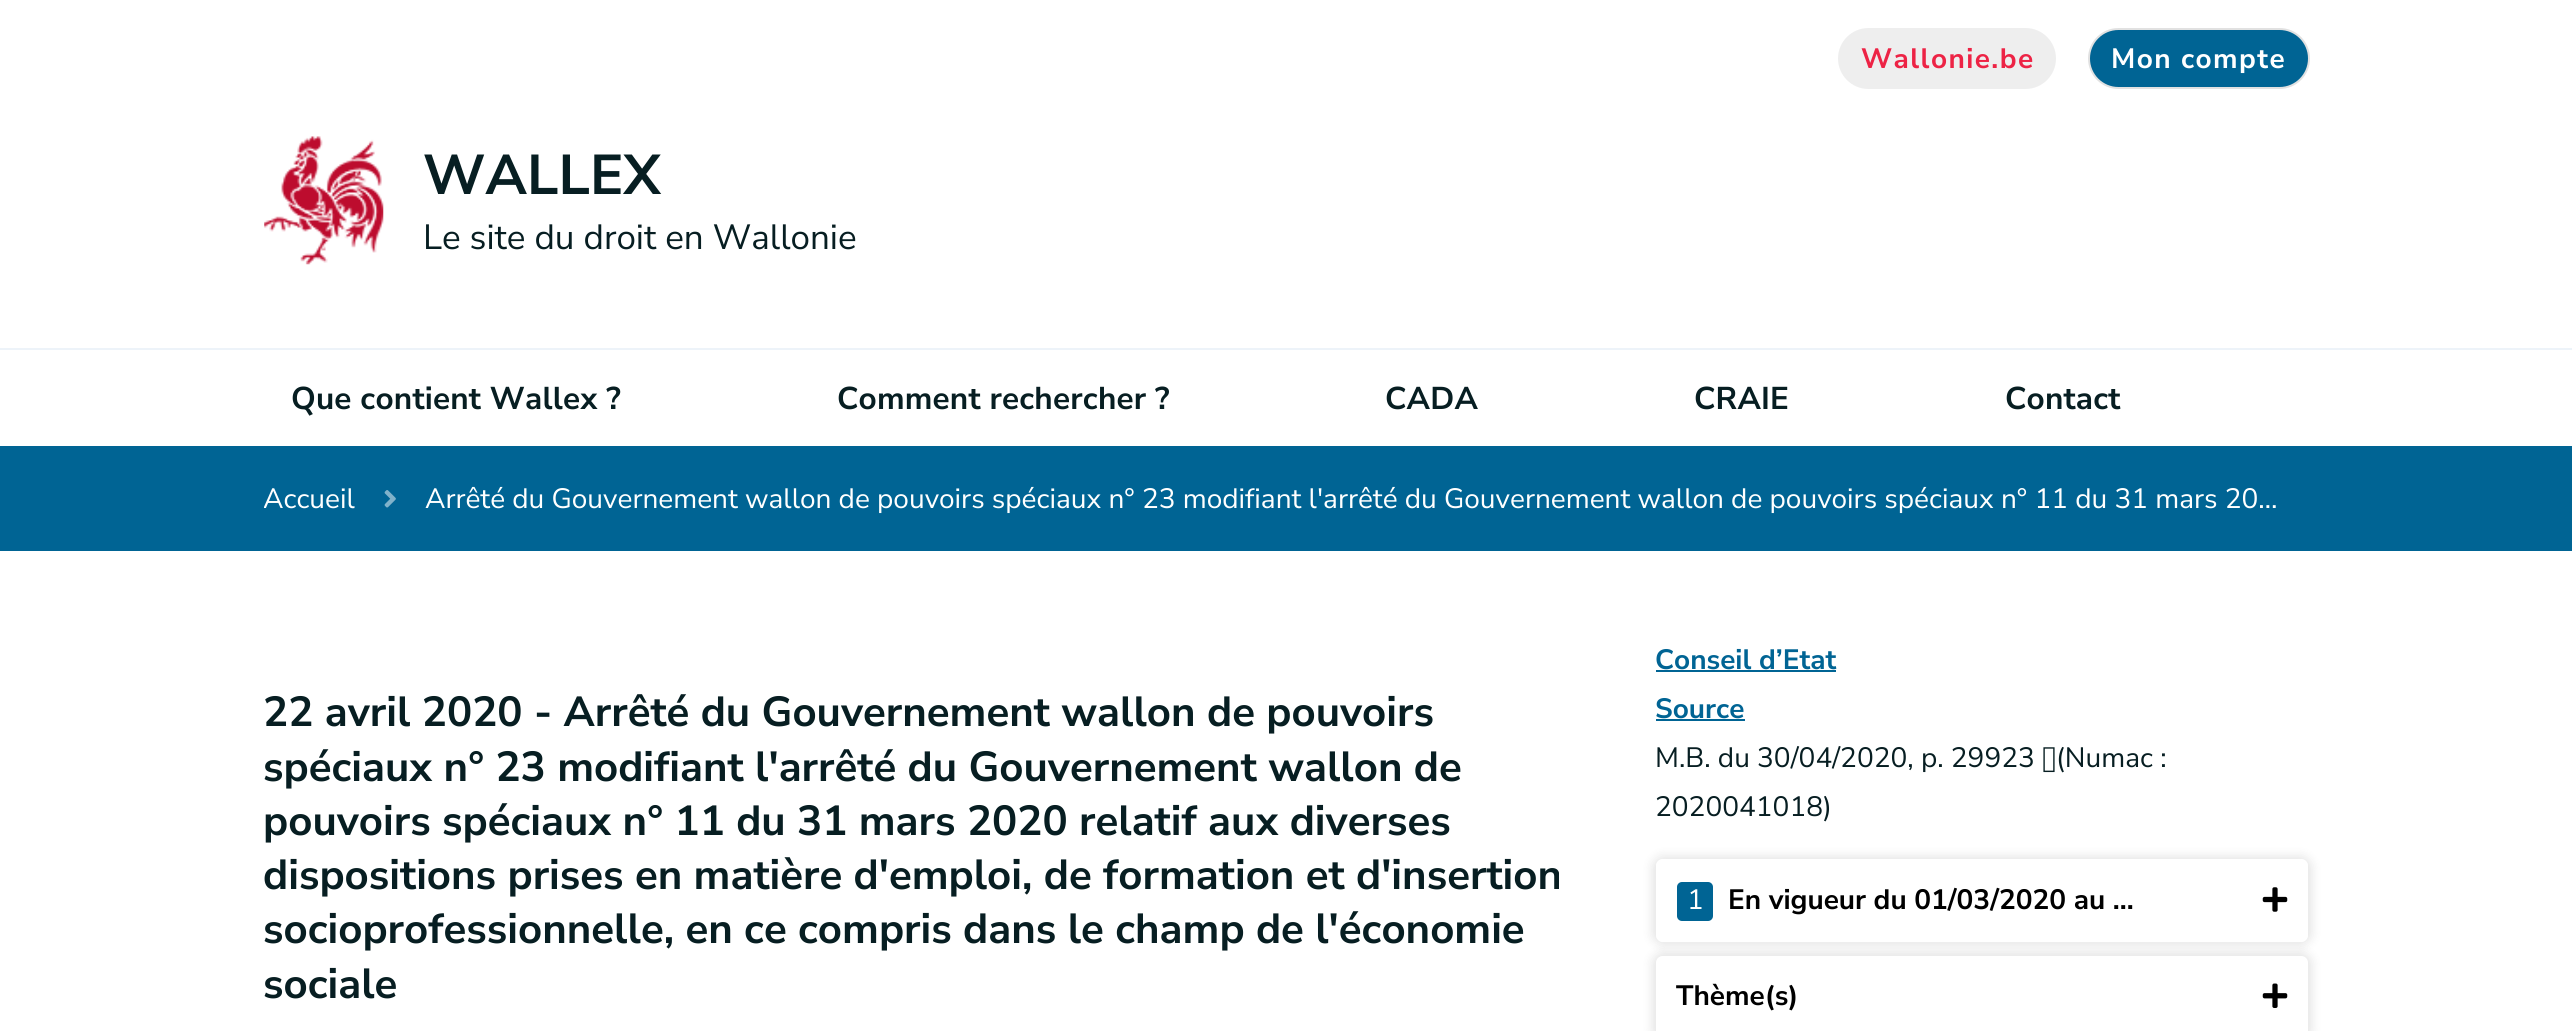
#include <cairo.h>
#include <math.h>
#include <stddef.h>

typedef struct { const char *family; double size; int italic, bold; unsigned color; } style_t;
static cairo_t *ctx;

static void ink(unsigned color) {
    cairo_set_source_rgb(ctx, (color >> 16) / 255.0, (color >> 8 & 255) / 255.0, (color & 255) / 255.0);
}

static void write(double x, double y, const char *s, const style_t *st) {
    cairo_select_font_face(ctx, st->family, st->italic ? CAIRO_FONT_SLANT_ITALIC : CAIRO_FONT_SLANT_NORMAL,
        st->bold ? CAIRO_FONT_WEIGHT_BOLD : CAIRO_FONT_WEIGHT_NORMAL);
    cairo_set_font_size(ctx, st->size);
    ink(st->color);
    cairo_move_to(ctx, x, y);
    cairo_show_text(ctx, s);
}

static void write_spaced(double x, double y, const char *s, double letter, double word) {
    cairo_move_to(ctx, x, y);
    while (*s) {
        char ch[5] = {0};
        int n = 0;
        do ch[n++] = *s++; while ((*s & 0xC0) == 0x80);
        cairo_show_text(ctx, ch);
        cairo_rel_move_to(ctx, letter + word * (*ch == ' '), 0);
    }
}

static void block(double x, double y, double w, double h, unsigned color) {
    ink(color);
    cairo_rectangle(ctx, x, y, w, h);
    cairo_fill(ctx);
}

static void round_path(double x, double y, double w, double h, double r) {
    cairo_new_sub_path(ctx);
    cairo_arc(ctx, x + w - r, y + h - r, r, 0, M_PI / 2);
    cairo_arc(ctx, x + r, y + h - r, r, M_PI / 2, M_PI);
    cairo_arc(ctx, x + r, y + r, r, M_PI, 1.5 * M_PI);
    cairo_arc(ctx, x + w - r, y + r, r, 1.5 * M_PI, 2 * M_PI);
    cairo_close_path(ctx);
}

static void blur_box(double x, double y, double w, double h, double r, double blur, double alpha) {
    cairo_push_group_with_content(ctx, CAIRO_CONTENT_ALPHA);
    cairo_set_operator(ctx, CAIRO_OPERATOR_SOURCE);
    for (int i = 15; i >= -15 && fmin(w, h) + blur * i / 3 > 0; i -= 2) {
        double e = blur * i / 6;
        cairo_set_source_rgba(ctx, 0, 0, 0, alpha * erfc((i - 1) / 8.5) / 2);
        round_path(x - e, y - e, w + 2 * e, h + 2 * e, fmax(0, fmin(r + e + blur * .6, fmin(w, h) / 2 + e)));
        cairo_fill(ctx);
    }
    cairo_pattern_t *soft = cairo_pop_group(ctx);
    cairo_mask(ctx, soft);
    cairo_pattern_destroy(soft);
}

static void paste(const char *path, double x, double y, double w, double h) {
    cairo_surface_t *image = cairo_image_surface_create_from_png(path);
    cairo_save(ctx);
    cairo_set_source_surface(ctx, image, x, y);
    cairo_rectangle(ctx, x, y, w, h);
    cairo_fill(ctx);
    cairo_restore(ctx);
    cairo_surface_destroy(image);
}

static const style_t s1 = {"Nunito Sans", 56, 0, 1, 0x071e22};
static const style_t s2 = {"Nunito Sans", 35, 0, 0, 0x071e22};
static const style_t s3 = {"Nunito Sans", 28, 0, 0, 0xffffff};
static const style_t s4 = {"Nunito Sans", 42, 0, 1, 0x071e22};
static const style_t s5 = {"Nunito Sans", 28, 0, 1, 0x006494};
static const style_t s6 = {"Nunito Sans", 28, 0, 0, 0x071e22};
static const style_t s7 = {"Nunito Sans", 28, 0, 1, 0x000000};

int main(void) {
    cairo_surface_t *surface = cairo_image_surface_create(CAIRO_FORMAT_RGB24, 2572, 1031);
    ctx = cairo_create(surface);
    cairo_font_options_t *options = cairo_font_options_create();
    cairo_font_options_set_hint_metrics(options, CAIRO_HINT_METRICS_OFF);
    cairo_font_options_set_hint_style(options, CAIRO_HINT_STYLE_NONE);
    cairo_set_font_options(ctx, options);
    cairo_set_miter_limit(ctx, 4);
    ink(0xffffff);
    cairo_paint(ctx);
    ink(0xeeeeee);
    round_path(1838, 28, 218, 61, 30.5);
    cairo_fill(ctx);
    cairo_select_font_face(ctx, "Nunito Sans", CAIRO_FONT_SLANT_NORMAL, CAIRO_FONT_WEIGHT_BOLD);
    cairo_set_font_size(ctx, 28);
    ink(0xed2345);
    write_spaced(1861, 68, "Wallonie.be", 1.4, 0);
    ink(0x006494);
    round_path(2089, 29, 220, 59, 29.5);
    cairo_fill_preserve(ctx);
    ink(0xe1e1e1);
    cairo_stroke(ctx);
    ink(0xffffff);
    write_spaced(2111, 68, "Mon compte", 1.4, 0);
    paste("pic1.png", 264, 136, 120, 129);
    write(423, 194, "WALLEX", &s1);
    write(423, 249, "Le site du droit en Wallonie", &s2);
    block(0, 348, 2572, 2, 0xedf3f9);
    cairo_select_font_face(ctx, "Nunito Sans", CAIRO_FONT_SLANT_NORMAL, CAIRO_FONT_WEIGHT_BOLD);
    cairo_set_font_size(ctx, 31.5);
    ink(0x071e22);
    write_spaced(291, 409, "Que contient Wallex ?", 0.2, 0);
    write_spaced(837, 409, "Comment rechercher ?", 0.2, 0);
    write_spaced(1385, 409, "CADA", 0.2, 0);
    write_spaced(1694, 409, "CRAIE", 0.2, 0);
    write_spaced(2005, 409, "Contact", 0.2, 0);
    block(264, 446, 2308, 105, 0x006494);
    write(263, 508, "Accueil", &s3);
    block(0, 446, 264, 105, 0x006494);
    paste("pic2.png", 384, 490, 12, 18);
    write(425, 508, "Arrêté du Gouvernement wallon de pouvoirs spéciaux n° 23 modifiant l'arrêté du Gouvernement wallon de pouvoirs spéciaux n° 11 du 31 mars 20…", &s3);
    write(263, 726, "22 avril 2020 - Arrêté du Gouvernement wallon de pouvoirs", &s4);
    write(263, 781, "spéciaux n° 23 modifiant l'arrêté du Gouvernement wallon de", &s4);
    write(263, 835, "pouvoirs spéciaux n° 11 du 31 mars 2020 relatif aux diverses", &s4);
    write(263, 889, "dispositions prises en matière d'emploi, de formation et d'insertion", &s4);
    write(263, 943, "socioprofessionnelle, en ce compris dans le champ de l'économie", &s4);
    write(263, 998, "sociale", &s4);
    write(1655, 669, "Conseil d’Etat", &s5);
    block(1656, 670, 180, 2, 0x006494);
    write(1655, 718, "Source", &s5);
    block(1656, 719, 89, 2, 0x006494);
    write(1655, 767, "M.B. du 30/04/2020, p. 29923  (Numac :", &s6);
    write(1655, 816, "2020041018)", &s6);
    cairo_save(ctx);
    cairo_set_fill_rule(ctx, CAIRO_FILL_RULE_EVEN_ODD);
    cairo_new_path(ctx);
    cairo_move_to(ctx, 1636, 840);
    cairo_line_to(ctx, 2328, 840);
    cairo_line_to(ctx, 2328, 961);
    cairo_line_to(ctx, 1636, 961);
    cairo_close_path(ctx);
    cairo_move_to(ctx, 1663, 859);
    cairo_line_to(ctx, 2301, 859);
    cairo_curve_to(ctx, 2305, 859, 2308, 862, 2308, 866);
    cairo_line_to(ctx, 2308, 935);
    cairo_curve_to(ctx, 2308, 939, 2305, 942, 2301, 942);
    cairo_line_to(ctx, 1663, 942);
    cairo_curve_to(ctx, 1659, 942, 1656, 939, 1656, 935);
    cairo_line_to(ctx, 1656, 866);
    cairo_curve_to(ctx, 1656, 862, 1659, 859, 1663, 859);
    cairo_close_path(ctx);
    cairo_clip(ctx);
    ink(0x000000);
    blur_box(1652, 856, 660, 89, 11, 5, 0.1);
    cairo_restore(ctx);
    ink(0x006494);
    round_path(1677, 882, 36, 39, 5);
    cairo_fill(ctx);
    write(1687, 909, "1", &s3);
    write(1728, 909, "En vigueur du 01/03/2020 au ...", &s7);
    paste("pic3.png", 2262, 887, 26, 25);
    cairo_save(ctx);
    cairo_set_fill_rule(ctx, CAIRO_FILL_RULE_EVEN_ODD);
    cairo_new_path(ctx);
    cairo_move_to(ctx, 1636, 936);
    cairo_line_to(ctx, 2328, 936);
    cairo_line_to(ctx, 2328, 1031);
    cairo_line_to(ctx, 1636, 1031);
    cairo_close_path(ctx);
    cairo_move_to(ctx, 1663, 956);
    cairo_line_to(ctx, 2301, 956);
    cairo_curve_to(ctx, 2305, 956, 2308, 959, 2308, 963);
    cairo_line_to(ctx, 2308, 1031);
    cairo_curve_to(ctx, 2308, 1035, 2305, 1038, 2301, 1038);
    cairo_line_to(ctx, 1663, 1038);
    cairo_curve_to(ctx, 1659, 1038, 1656, 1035, 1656, 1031);
    cairo_line_to(ctx, 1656, 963);
    cairo_curve_to(ctx, 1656, 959, 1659, 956, 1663, 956);
    cairo_close_path(ctx);
    cairo_clip(ctx);
    ink(0x000000);
    blur_box(1652, 952, 660, 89, 11, 5, 0.1);
    cairo_restore(ctx);
    write(1676, 1005, "Thème(s)", &s7);
    paste("pic4.png", 2262, 983, 26, 25);
    cairo_surface_write_to_png(surface, "screenshot.png");
    cairo_font_options_destroy(options);
    cairo_destroy(ctx);
    cairo_surface_destroy(surface);
    return 0;
}
